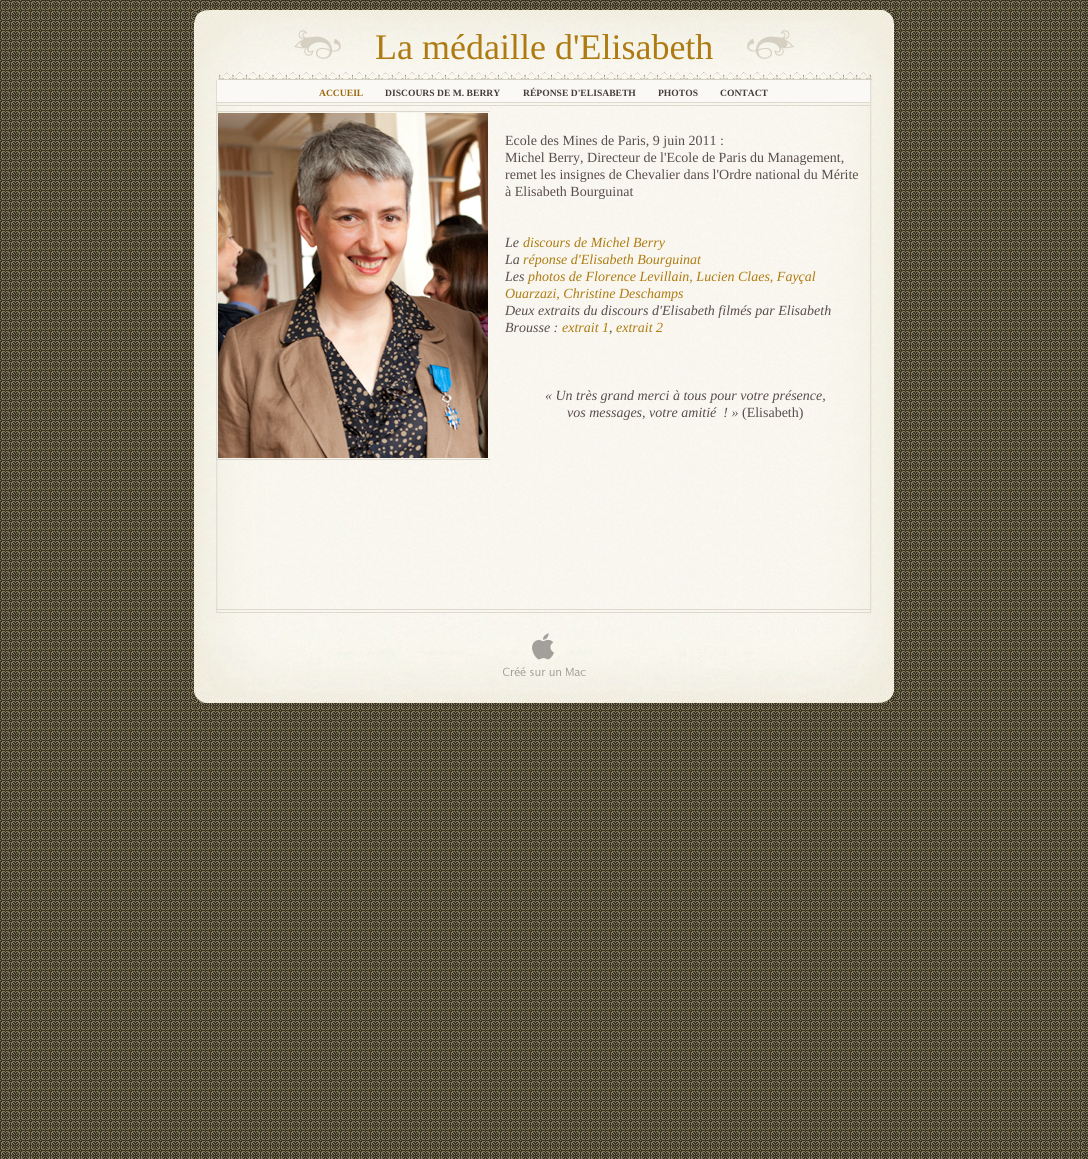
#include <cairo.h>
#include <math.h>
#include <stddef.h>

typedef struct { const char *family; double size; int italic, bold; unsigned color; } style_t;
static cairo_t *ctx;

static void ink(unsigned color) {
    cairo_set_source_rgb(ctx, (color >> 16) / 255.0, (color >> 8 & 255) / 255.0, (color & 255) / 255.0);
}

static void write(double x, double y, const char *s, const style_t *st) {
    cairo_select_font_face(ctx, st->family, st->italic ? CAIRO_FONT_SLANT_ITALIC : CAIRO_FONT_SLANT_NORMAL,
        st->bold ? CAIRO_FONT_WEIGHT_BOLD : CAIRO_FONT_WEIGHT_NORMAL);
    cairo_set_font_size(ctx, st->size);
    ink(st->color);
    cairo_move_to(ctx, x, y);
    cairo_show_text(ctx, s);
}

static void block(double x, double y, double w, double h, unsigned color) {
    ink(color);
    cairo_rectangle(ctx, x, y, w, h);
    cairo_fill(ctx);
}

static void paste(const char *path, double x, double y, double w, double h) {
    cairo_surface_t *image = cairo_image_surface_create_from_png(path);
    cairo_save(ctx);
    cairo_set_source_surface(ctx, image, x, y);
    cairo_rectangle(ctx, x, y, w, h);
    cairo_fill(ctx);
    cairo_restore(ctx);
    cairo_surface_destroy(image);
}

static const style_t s1 = {"Liberation Serif", 36, 0, 0, 0xad7b12};
static const style_t s2 = {"Liberation Serif", 9.6, 0, 1, 0x9c6810};
static const style_t s3 = {"Liberation Serif", 9.6, 0, 1, 0x463c3c};
static const style_t s4 = {"Liberation Serif", 14, 0, 0, 0x584d4d};
static const style_t s5 = {"Liberation Serif", 14, 1, 0, 0x584d4d};
static const style_t s6 = {"Liberation Serif", 14, 1, 0, 0xad7b12};

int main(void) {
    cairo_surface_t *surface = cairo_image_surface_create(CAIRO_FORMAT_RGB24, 1088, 1159);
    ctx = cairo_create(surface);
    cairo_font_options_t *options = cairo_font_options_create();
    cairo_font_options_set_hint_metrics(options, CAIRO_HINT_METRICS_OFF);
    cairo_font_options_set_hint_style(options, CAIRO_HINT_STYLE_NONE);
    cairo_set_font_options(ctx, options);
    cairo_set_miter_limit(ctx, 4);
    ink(0xffffff);
    cairo_paint(ctx);
    paste("pic1.png", 0, 0, 1088, 1159);
    paste("pic2.png", 194, 69, 700, 544);
    paste("pic3.png", 194, 10, 700, 59);
    paste("pic4.png", 294, 30, 47, 29);
    write(375, 59, "La médaille d'Elisabeth", &s1);
    paste("pic5.png", 747, 30, 47, 29);
    paste("pic6.png", 194, 69, 697, 11);
    block(217, 80, 653, 22, 0xfaf9f5);
    write(319, 96, "ACCUEIL", &s2);
    write(385, 96, "DISCOURS DE M. BERRY", &s3);
    write(523, 96, "RÉPONSE D'ELISABETH", &s3);
    write(658, 96, "PHOTOS", &s3);
    write(720, 96, "CONTACT", &s3);
    block(216, 102, 655, 1, 0xddd9cd);
    block(216, 105, 655, 1, 0xddd9cd);
    block(216, 111, 1, 348, 0xddd8cd);
    block(217, 111, 273, 1, 0xddd8cd);
    paste("pic7.png", 218, 113, 270, 345);
    block(216, 459, 274, 1, 0xddd8cd);
    write(505, 145, "Ecole des Mines de Paris, 9 juin 2011 :", &s4);
    write(505, 162, "Michel Berry, Directeur de l'Ecole de Paris du Management,", &s4);
    write(505, 179, "remet les insignes de Chevalier dans l'Ordre national du Mérite", &s4);
    write(505, 196, "à Elisabeth Bourguinat", &s4);
    write(505, 247, "Le", &s5);
    write(523, 247, "discours de Michel Berry", &s6);
    write(505, 264, "La", &s5);
    write(523, 264, "réponse d'Elisabeth Bourguinat", &s6);
    write(505, 281, "Les", &s5);
    write(528, 281, "photos de Florence Levillain, Lucien Claes, Fayçal", &s6);
    write(505, 298, "Ouarzazi, Christine Deschamps", &s6);
    write(505, 315, "Deux extraits du discours d'Elisabeth filmés par Elisabeth", &s5);
    write(505, 332, "Brousse :", &s5);
    write(562, 332, "extrait 1", &s6);
    write(609, 332, ",", &s5);
    write(616, 332, "extrait 2", &s6);
    write(545, 400, "« Un très grand merci à tous pour votre présence,", &s5);
    write(567, 417, "vos messages, votre amitié  ! »", &s5);
    write(742, 417, "(Elisabeth)", &s4);
    block(216, 609, 655, 1, 0xddd9cd);
    block(216, 612, 655, 1, 0xddd9cd);
    paste("pic8.png", 194, 613, 700, 90);
    paste("pic9.png", 503, 633, 83, 43);
    cairo_surface_write_to_png(surface, "screenshot.png");
    cairo_font_options_destroy(options);
    cairo_destroy(ctx);
    cairo_surface_destroy(surface);
    return 0;
}
